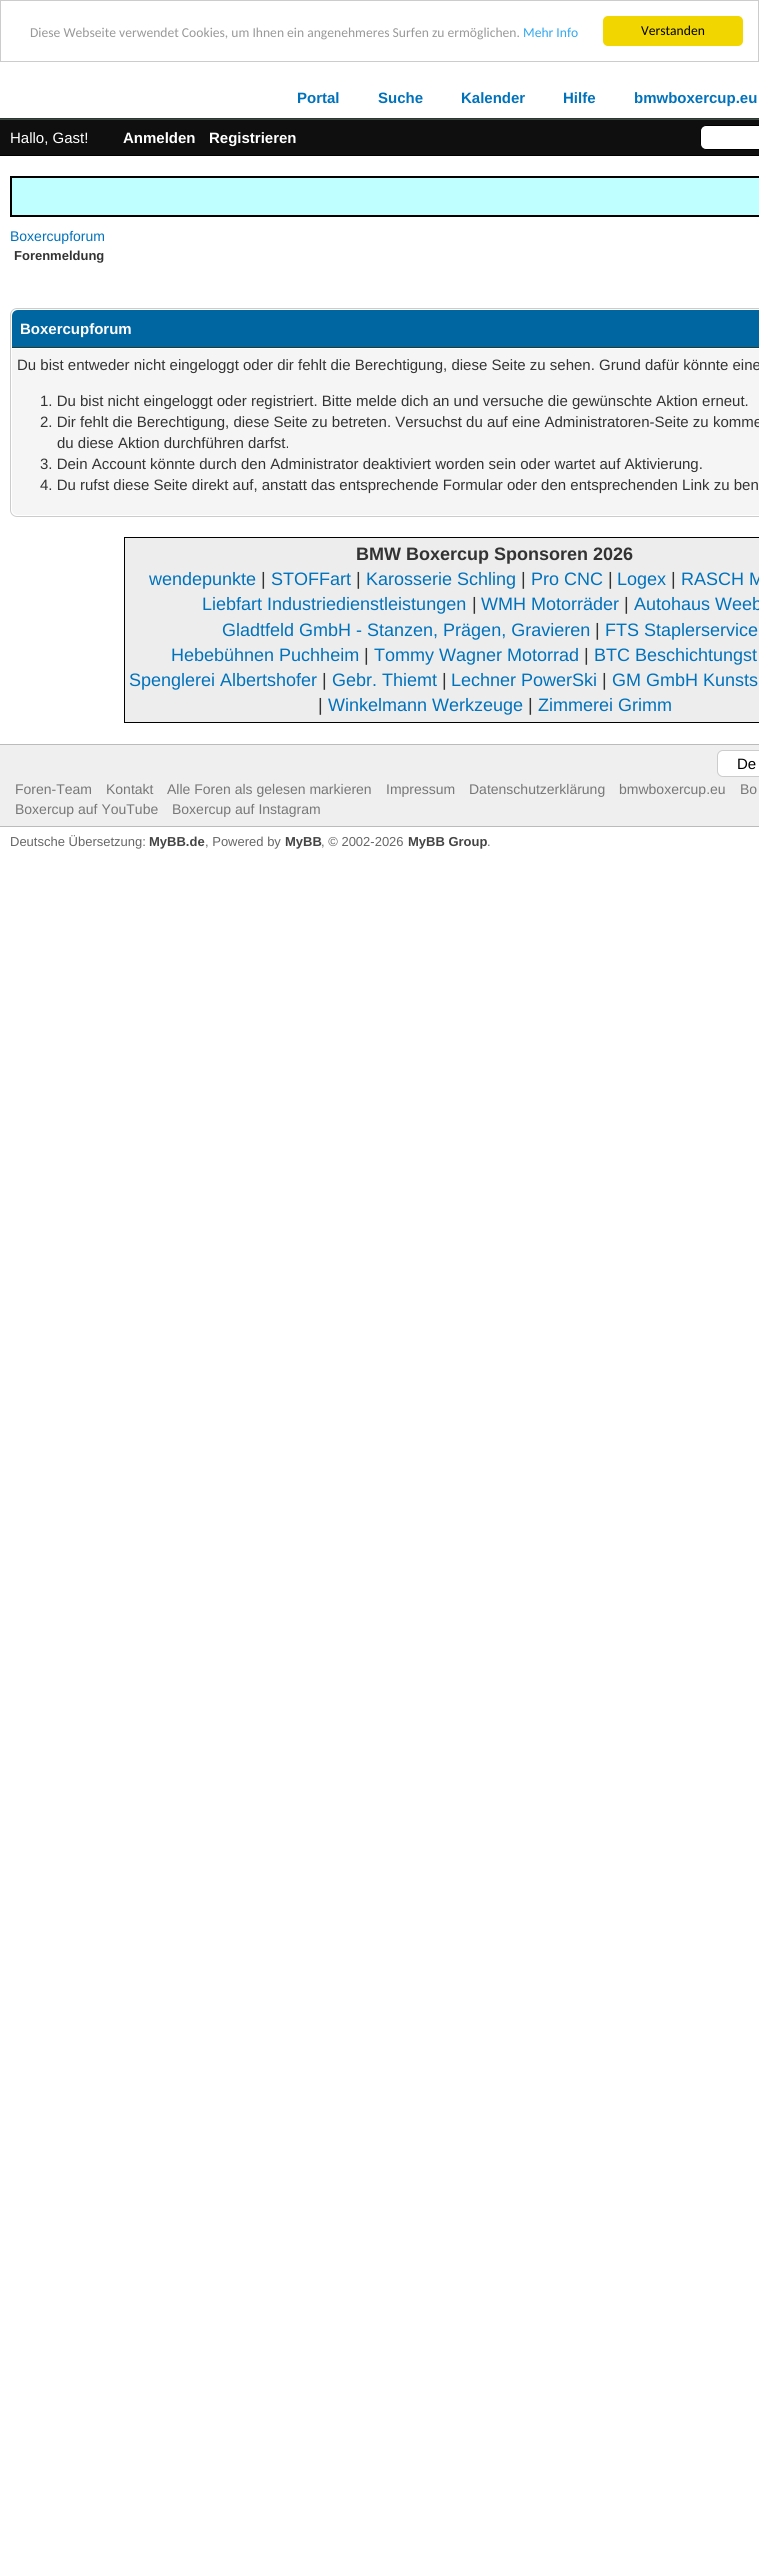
#include <cairo.h>
#include <math.h>
#include <stddef.h>

typedef struct { const char *family; double size; int italic, bold; unsigned color; } style_t;
static cairo_t *ctx;

static void ink(unsigned color) {
    cairo_set_source_rgb(ctx, (color >> 16) / 255.0, (color >> 8 & 255) / 255.0, (color & 255) / 255.0);
}

static void write(double x, double y, const char *s, const style_t *st) {
    cairo_select_font_face(ctx, st->family, st->italic ? CAIRO_FONT_SLANT_ITALIC : CAIRO_FONT_SLANT_NORMAL,
        st->bold ? CAIRO_FONT_WEIGHT_BOLD : CAIRO_FONT_WEIGHT_NORMAL);
    cairo_set_font_size(ctx, st->size);
    ink(st->color);
    cairo_move_to(ctx, x, y);
    cairo_show_text(ctx, s);
}

static void block(double x, double y, double w, double h, unsigned color) {
    ink(color);
    cairo_rectangle(ctx, x, y, w, h);
    cairo_fill(ctx);
}

static void round_path(double x, double y, double w, double h, double r) {
    cairo_new_sub_path(ctx);
    cairo_arc(ctx, x + w - r, y + h - r, r, 0, M_PI / 2);
    cairo_arc(ctx, x + r, y + h - r, r, M_PI / 2, M_PI);
    cairo_arc(ctx, x + r, y + r, r, M_PI, 1.5 * M_PI);
    cairo_arc(ctx, x + w - r, y + r, r, 1.5 * M_PI, 2 * M_PI);
    cairo_close_path(ctx);
}

static const style_t s1 = {"Carlito", 13.6, 0, 0, 0x999999};
static const style_t s2 = {"Carlito", 13.6, 0, 0, 0x31a8f0};
static const style_t s3 = {"Carlito", 13.6, 0, 0, 0x000000};
static const style_t s4 = {"Liberation Sans", 15, 0, 1, 0x0072bc};
static const style_t s5 = {"Liberation Sans", 15, 0, 0, 0xffffff};
static const style_t s6 = {"Liberation Sans", 15, 0, 1, 0xffffff};
static const style_t s7 = {"Liberation Sans", 14, 0, 0, 0x0072bc};
static const style_t s8 = {"Liberation Sans", 13, 0, 1, 0x333333};
static const style_t s9 = {"Liberation Sans", 15, 0, 0, 0x333333};
static const style_t s10 = {"Liberation Sans", 18, 0, 1, 0x333333};
static const style_t s11 = {"Liberation Sans", 18, 0, 0, 0x0072bc};
static const style_t s12 = {"Liberation Sans", 18, 0, 0, 0x333333};
static const style_t s13 = {"Liberation Sans", 15, 0, 0, 0x000000};
static const style_t s14 = {"Liberation Sans", 14, 0, 0, 0x777777};
static const style_t s15 = {"Liberation Sans", 13, 0, 0, 0x666666};
static const style_t s16 = {"Liberation Sans", 13, 0, 1, 0x444444};

int main(void) {
    cairo_surface_t *surface = cairo_image_surface_create(CAIRO_FORMAT_RGB24, 759, 2550);
    ctx = cairo_create(surface);
    cairo_font_options_t *options = cairo_font_options_create();
    cairo_font_options_set_hint_metrics(options, CAIRO_HINT_METRICS_OFF);
    cairo_font_options_set_hint_style(options, CAIRO_HINT_STYLE_NONE);
    cairo_set_font_options(ctx, options);
    cairo_set_miter_limit(ctx, 4);
    ink(0xffffff);
    cairo_paint(ctx);
    cairo_rectangle(ctx, 0.5, 0.5, 758, 61);
    ink(0xcccccc);
    cairo_set_line_width(ctx, 1);
    cairo_stroke(ctx);
    write(30, 37, "Diese Webseite verwendet Cookies, um Ihnen ein angenehmeres Surfen zu ermöglichen.", &s1);
    write(523, 37, "Mehr Info", &s2);
    ink(0xf1d600);
    round_path(603, 16, 140, 30, 5);
    cairo_fill(ctx);
    write(641, 35, "Verstanden", &s3);
    block(0, 118, 759, 1, 0x263c30);
    write(297, 103, "Portal", &s4);
    write(378, 103, "Suche", &s4);
    write(461, 103, "Kalender", &s4);
    write(563, 103, "Hilfe", &s4);
    write(634, 103, "bmwboxercup.eu", &s4);
    block(0, 120, 759, 35, 0x0f0f0f);
    block(0, 119, 759, 1, 0x444444);
    block(0, 155, 759, 1, 0x000000);
    write(10, 143, "Hallo, Gast!", &s5);
    write(123, 143, "Anmelden", &s6);
    write(209, 143, "Registrieren", &s6);
    round_path(700.5, 125.5, 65, 24, 5.5);
    cairo_fill_preserve(ctx);
    ink(0x000000);
    cairo_stroke(ctx);
    ink(0xc0ffff);
    cairo_rectangle(ctx, 11, 177, 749, 39);
    cairo_fill_preserve(ctx);
    ink(0x000000);
    cairo_set_line_width(ctx, 2);
    cairo_stroke(ctx);
    write(10, 241, "Boxercupforum", &s7);
    write(14, 260, "Forenmeldung", &s8);
    round_path(10.5, 308.5, 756, 208, 6.5);
    ink(0xcccccc);
    cairo_set_line_width(ctx, 1);
    cairo_stroke(ctx);
    ink(0x0066a2);
    cairo_new_path(ctx);
    cairo_move_to(ctx, 18, 310);
    cairo_line_to(ctx, 759, 310);
    cairo_curve_to(ctx, 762.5, 310, 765, 312.5, 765, 316);
    cairo_line_to(ctx, 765, 348);
    cairo_line_to(ctx, 12, 348);
    cairo_line_to(ctx, 12, 316);
    cairo_curve_to(ctx, 12, 312.5, 14.5, 310, 18, 310);
    cairo_close_path(ctx);
    cairo_fill(ctx);
    block(12, 347, 747, 1, 0x263c30);
    write(20, 334, "Boxercupforum", &s6);
    ink(0xf5f5f5);
    cairo_new_path(ctx);
    cairo_move_to(ctx, 12, 348);
    cairo_line_to(ctx, 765, 348);
    cairo_line_to(ctx, 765, 509);
    cairo_curve_to(ctx, 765, 512.5, 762.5, 515, 759, 515);
    cairo_line_to(ctx, 18, 515);
    cairo_curve_to(ctx, 14.5, 515, 12, 512.5, 12, 509);
    cairo_close_path(ctx);
    cairo_fill(ctx);
    block(12, 348, 747, 1, 0xffffff);
    write(17, 370, "Du bist entweder nicht eingeloggt oder dir fehlt die Berechtigung, diese Seite zu sehen. Grund dafür könnte eine", &s9);
    write(40, 406, "1. Du bist nicht eingeloggt oder registriert. Bitte melde dich an und versuche die gewünschte Aktion erneut.", &s9);
    write(40, 427, "2. Dir fehlt die Berechtigung, diese Seite zu betreten. Versuchst du auf eine Administratoren-Seite zu komme", &s9);
    write(57, 448, "du diese Aktion durchführen darfst.", &s9);
    write(40, 469, "3. Dein Account könnte durch den Administrator deaktiviert worden sein oder wartet auf Aktivierung.", &s9);
    write(40, 490, "4. Du rufst diese Seite direkt auf, anstatt das entsprechende Formular oder den entsprechenden Link zu ben", &s9);
    block(124, 537, 635, 186, 0x000000);
    block(125, 538, 634, 184, 0xededed);
    write(356, 560, "BMW Boxercup Sponsoren 2026", &s10);
    write(149, 585, "wendepunkte", &s11);
    write(261, 585, "|", &s12);
    write(271, 585, "STOFFart", &s11);
    write(356, 585, "|", &s12);
    write(366, 585, "Karosserie Schling", &s11);
    write(521, 585, "|", &s12);
    write(531, 585, "Pro CNC", &s11);
    write(608, 585, "|", &s12);
    write(617, 585, "Logex", &s11);
    write(671, 585, "|", &s12);
    write(681, 585, "RASCH M", &s11);
    write(202, 610, "Liebfart Industriedienstleistungen", &s11);
    write(472, 610, "|", &s12);
    write(481, 610, "WMH Motorräder", &s11);
    write(624, 610, "|", &s12);
    write(634, 610, "Autohaus Weeb", &s11);
    write(222, 636, "Gladtfeld GmbH - Stanzen, Prägen, Gravieren", &s11);
    write(595, 636, "|", &s12);
    write(605, 636, "FTS Staplerservice", &s11);
    write(171, 661, "Hebebühnen Puchheim", &s11);
    write(364, 661, "|", &s12);
    write(374, 661, "Tommy Wagner Motorrad", &s11);
    write(584, 661, "|", &s12);
    write(594, 661, "BTC Beschichtungst", &s11);
    write(129, 686, "Spenglerei Albertshofer", &s11);
    write(322, 686, "|", &s12);
    write(332, 686, "Gebr. Thiemt", &s11);
    write(442, 686, "|", &s12);
    write(451, 686, "Lechner PowerSki", &s11);
    write(602, 686, "|", &s12);
    write(612, 686, "GM GmbH Kunsts", &s11);
    write(318, 711, "|", &s12);
    write(328, 711, "Winkelmann Werkzeuge", &s11);
    write(528, 711, "|", &s12);
    write(538, 711, "Zimmerei Grimm", &s11);
    block(0, 745, 759, 81, 0xefefef);
    block(0, 744, 759, 1, 0xbbbbbb);
    block(0, 826, 759, 1, 0xbbbbbb);
    ink(0xffffff);
    round_path(717.5, 750.5, 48, 26, 5.5);
    cairo_fill_preserve(ctx);
    ink(0xcccccc);
    cairo_stroke(ctx);
    write(737, 769, "De", &s13);
    write(15, 794, "Foren-Team", &s14);
    write(106, 794, "Kontakt", &s14);
    write(167, 794, "Alle Foren als gelesen markieren", &s14);
    write(386, 794, "Impressum", &s14);
    write(469, 794, "Datenschutzerklärung", &s14);
    write(619, 794, "bmwboxercup.eu", &s14);
    write(740, 794, "Bo", &s14);
    write(15, 814, "Boxercup auf YouTube", &s14);
    write(172, 814, "Boxercup auf Instagram", &s14);
    write(10, 846, "Deutsche Übersetzung:", &s15);
    write(149, 846, "MyBB.de", &s16);
    write(205, 846, ", Powered by", &s15);
    write(285, 846, "MyBB", &s16);
    write(321, 846, ", © 2002-2026", &s15);
    write(408, 846, "MyBB Group", &s16);
    write(487, 846, ".", &s15);
    cairo_surface_write_to_png(surface, "screenshot.png");
    cairo_font_options_destroy(options);
    cairo_destroy(ctx);
    cairo_surface_destroy(surface);
    return 0;
}
